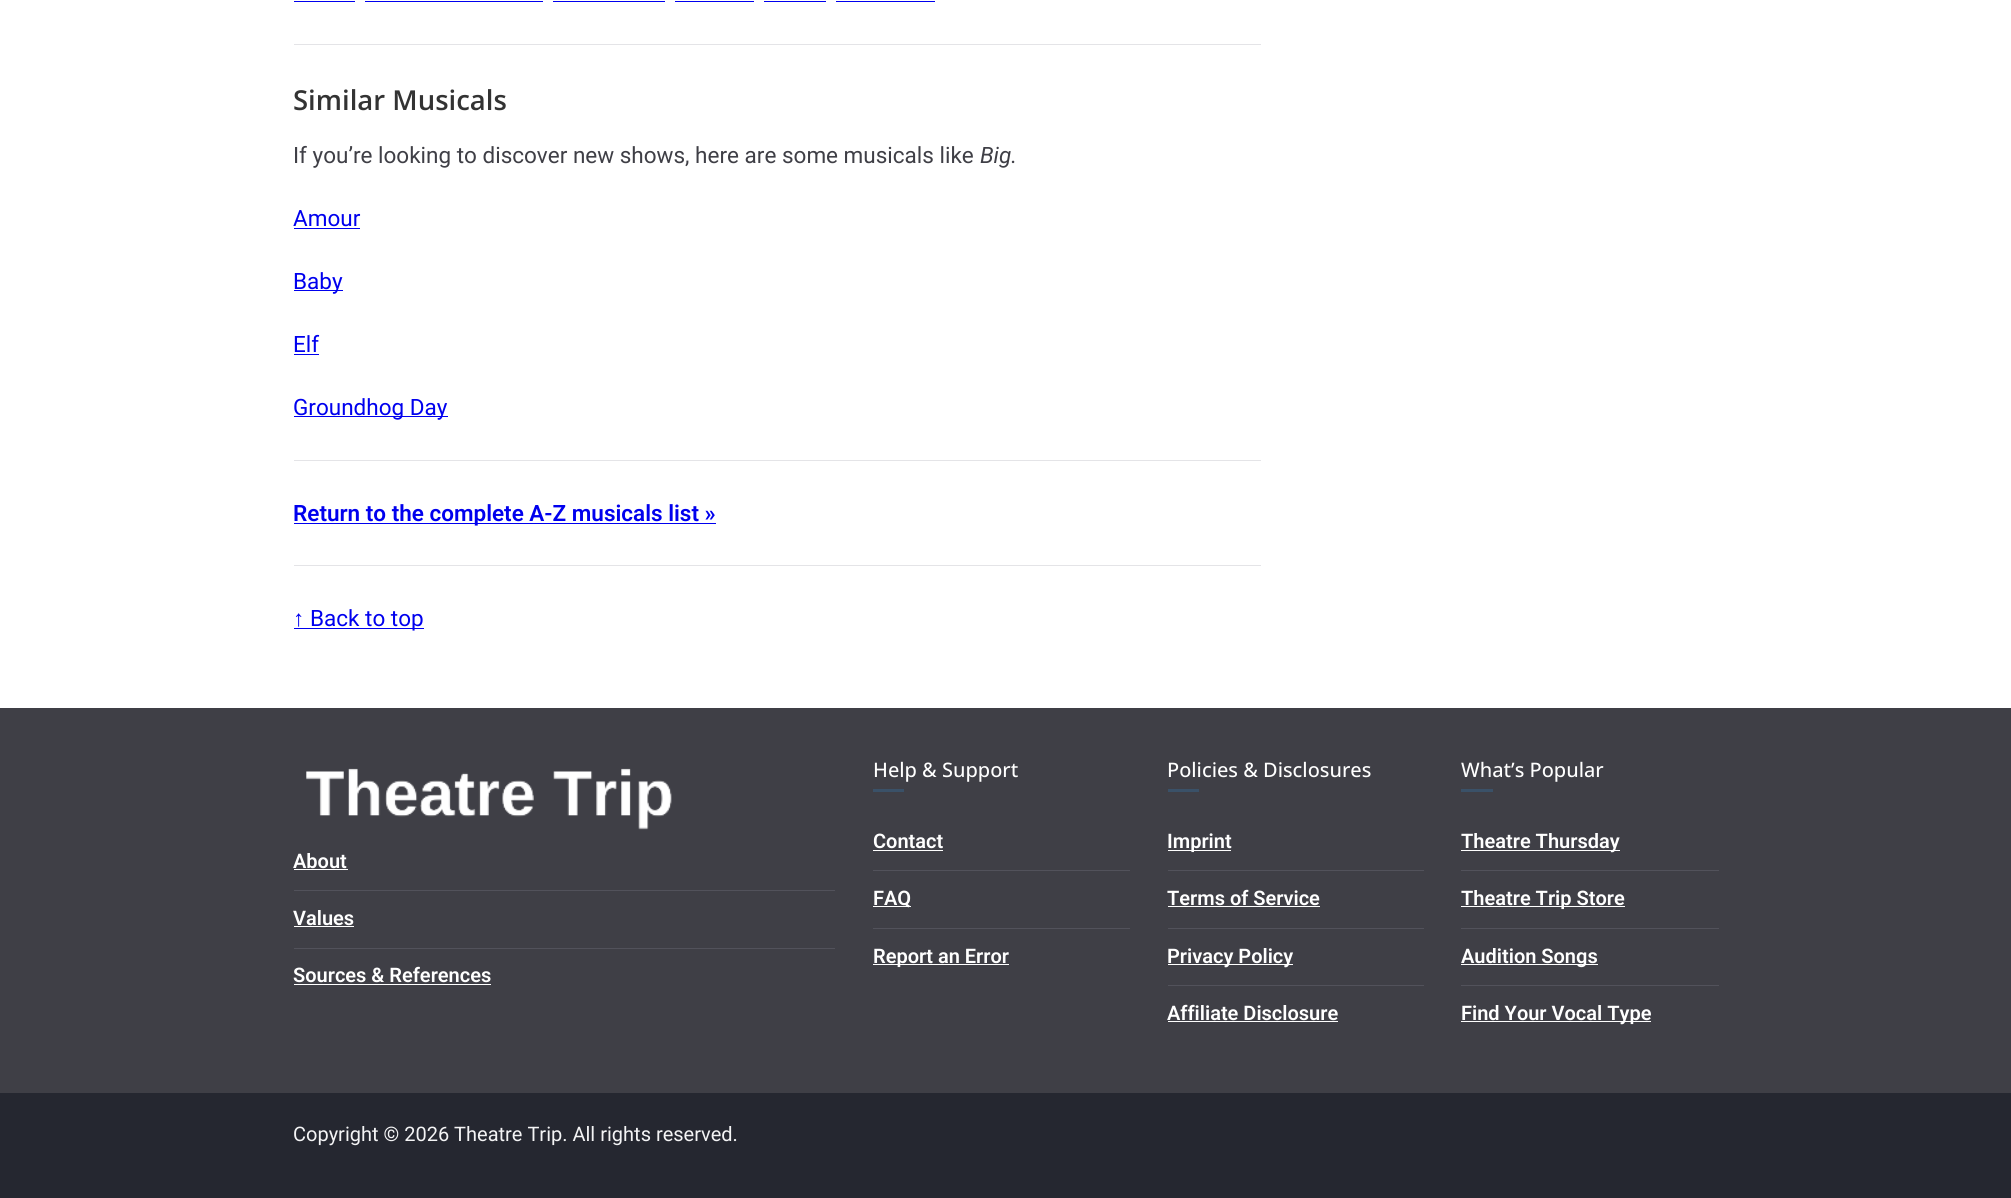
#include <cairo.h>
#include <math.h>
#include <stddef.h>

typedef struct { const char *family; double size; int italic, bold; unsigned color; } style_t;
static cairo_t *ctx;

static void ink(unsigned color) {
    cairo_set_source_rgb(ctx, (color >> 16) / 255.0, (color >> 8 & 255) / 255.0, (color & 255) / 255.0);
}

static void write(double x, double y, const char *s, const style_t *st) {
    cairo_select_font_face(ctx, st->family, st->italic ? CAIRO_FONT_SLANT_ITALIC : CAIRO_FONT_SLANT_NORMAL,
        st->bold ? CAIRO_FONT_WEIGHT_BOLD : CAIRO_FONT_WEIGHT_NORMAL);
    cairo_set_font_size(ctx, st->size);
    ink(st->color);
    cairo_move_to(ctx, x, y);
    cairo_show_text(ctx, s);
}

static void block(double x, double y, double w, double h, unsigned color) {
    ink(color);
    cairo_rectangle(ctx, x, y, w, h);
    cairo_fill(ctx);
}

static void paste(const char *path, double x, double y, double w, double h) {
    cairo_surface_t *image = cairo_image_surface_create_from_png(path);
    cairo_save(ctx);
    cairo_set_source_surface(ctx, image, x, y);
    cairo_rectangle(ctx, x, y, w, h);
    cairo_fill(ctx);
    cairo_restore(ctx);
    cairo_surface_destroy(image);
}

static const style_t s1 = {"Open Sans SemiBold", 27.5, 0, 0, 0x333333};
static const style_t s2 = {"Roboto", 22.5, 0, 0, 0x3f3f46};
static const style_t s3 = {"Roboto", 22.5, 1, 0, 0x3f3f46};
static const style_t s4 = {"Roboto", 22.5, 0, 0, 0x0000ee};
static const style_t s5 = {"Roboto SemiBold", 22.5, 0, 0, 0x0000ee};
static const style_t s6 = {"Liberation Sans", 22.5, 0, 0, 0x0000ee};
static const style_t s7 = {"Roboto SemiBold", 20, 0, 0, 0xffffff};
static const style_t s8 = {"Open Sans Medium", 20, 0, 0, 0xffffff};
static const style_t s9 = {"Roboto", 20, 0, 0, 0xf4f4f5};

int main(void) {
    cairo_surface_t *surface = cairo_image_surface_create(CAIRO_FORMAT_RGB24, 2011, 1198);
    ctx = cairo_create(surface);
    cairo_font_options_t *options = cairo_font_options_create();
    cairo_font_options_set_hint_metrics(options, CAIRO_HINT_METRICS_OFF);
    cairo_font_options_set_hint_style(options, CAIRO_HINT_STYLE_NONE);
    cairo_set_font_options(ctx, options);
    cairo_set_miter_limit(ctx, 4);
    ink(0xffffff);
    cairo_paint(ctx);
    block(294, 1, 61, 1, 0x0000ee);
    block(365, 1, 178, 1, 0x0000ee);
    block(553, 1, 112, 1, 0x0000ee);
    block(675, 1, 79, 1, 0x0000ee);
    block(764, 1, 62, 1, 0x0000ee);
    block(836, 1, 99, 1, 0x0000ee);
    block(294, 44, 967, 1, 0xe4e4e7);
    write(293, 110, "Similar Musicals", &s1);
    write(293, 163, "If you’re looking to discover new shows, here are some musicals like", &s2);
    write(980, 163, "Big.", &s3);
    write(293, 226, "Amour", &s4);
    block(294, 228, 66, 1, 0x0000ee);
    block(294, 290, 49, 1, 0x0000ee);
    write(293, 289, "Baby", &s4);
    write(293, 352, "Elf", &s4);
    block(294, 354, 25, 1, 0x0000ee);
    block(294, 416, 154, 1, 0x0000ee);
    write(293, 415, "Groundhog Day", &s4);
    block(294, 460, 967, 1, 0xe4e4e7);
    block(294, 523, 422, 1, 0x0000ee);
    write(293, 521, "Return to the complete A-Z musicals list »", &s5);
    block(294, 565, 967, 1, 0xe4e4e7);
    write(293, 626, "↑", &s6);
    block(294, 628, 130, 1, 0x0000ee);
    write(310, 626, "Back to top", &s4);
    block(0, 708, 2011, 385, 0x3f3f46);
    paste("pic1.png", 306, 768, 366, 62);
    block(294, 890, 541, 1, 0x52525b);
    write(293, 868, "About", &s7);
    block(294, 869, 54, 1, 0xffffff);
    block(294, 948, 541, 1, 0x52525b);
    write(293, 925, "Values", &s7);
    block(294, 926, 60, 1, 0xffffff);
    write(293, 982, "Sources & References", &s7);
    block(294, 984, 197, 1, 0xffffff);
    write(873, 777, "Help & Support", &s8);
    block(873, 789, 31, 3, 0x3a5168);
    block(873, 870, 257, 1, 0x52525b);
    write(873, 848, "Contact", &s7);
    block(873, 850, 70, 1, 0xffffff);
    block(873, 928, 257, 1, 0x52525b);
    block(873, 906, 38, 1, 0xffffff);
    write(873, 905, "FAQ", &s7);
    block(873, 964, 136, 1, 0xffffff);
    write(873, 963, "Report an Error", &s7);
    write(1167, 777, "Policies & Disclosures", &s8);
    block(1168, 789, 31, 3, 0x3a5168);
    block(1168, 870, 256, 1, 0x52525b);
    block(1168, 850, 63, 1, 0xffffff);
    write(1167, 848, "Imprint", &s7);
    block(1168, 928, 256, 1, 0x52525b);
    write(1167, 905, "Terms of Service", &s7);
    block(1168, 906, 152, 1, 0xffffff);
    block(1168, 985, 256, 1, 0x52525b);
    block(1168, 964, 125, 1, 0xffffff);
    write(1167, 963, "Privacy Policy", &s7);
    write(1167, 1020, "Affiliate Disclosure", &s7);
    block(1168, 1021, 170, 1, 0xffffff);
    write(1461, 777, "What’s Popular", &s8);
    block(1461, 789, 32, 3, 0x3a5168);
    block(1461, 870, 258, 1, 0x52525b);
    block(1461, 850, 159, 1, 0xffffff);
    write(1461, 848, "Theatre Thursday", &s7);
    block(1461, 928, 258, 1, 0x52525b);
    block(1461, 906, 164, 1, 0xffffff);
    write(1461, 905, "Theatre Trip Store", &s7);
    block(1461, 985, 258, 1, 0x52525b);
    block(1461, 964, 137, 1, 0xffffff);
    write(1461, 963, "Audition Songs", &s7);
    block(1461, 1021, 190, 1, 0xffffff);
    write(1461, 1020, "Find Your Vocal Type", &s7);
    block(0, 1093, 2011, 105, 0x252730);
    write(293, 1141, "Copyright © 2026 Theatre Trip. All rights reserved.", &s9);
    cairo_surface_write_to_png(surface, "screenshot.png");
    cairo_font_options_destroy(options);
    cairo_destroy(ctx);
    cairo_surface_destroy(surface);
    return 0;
}
